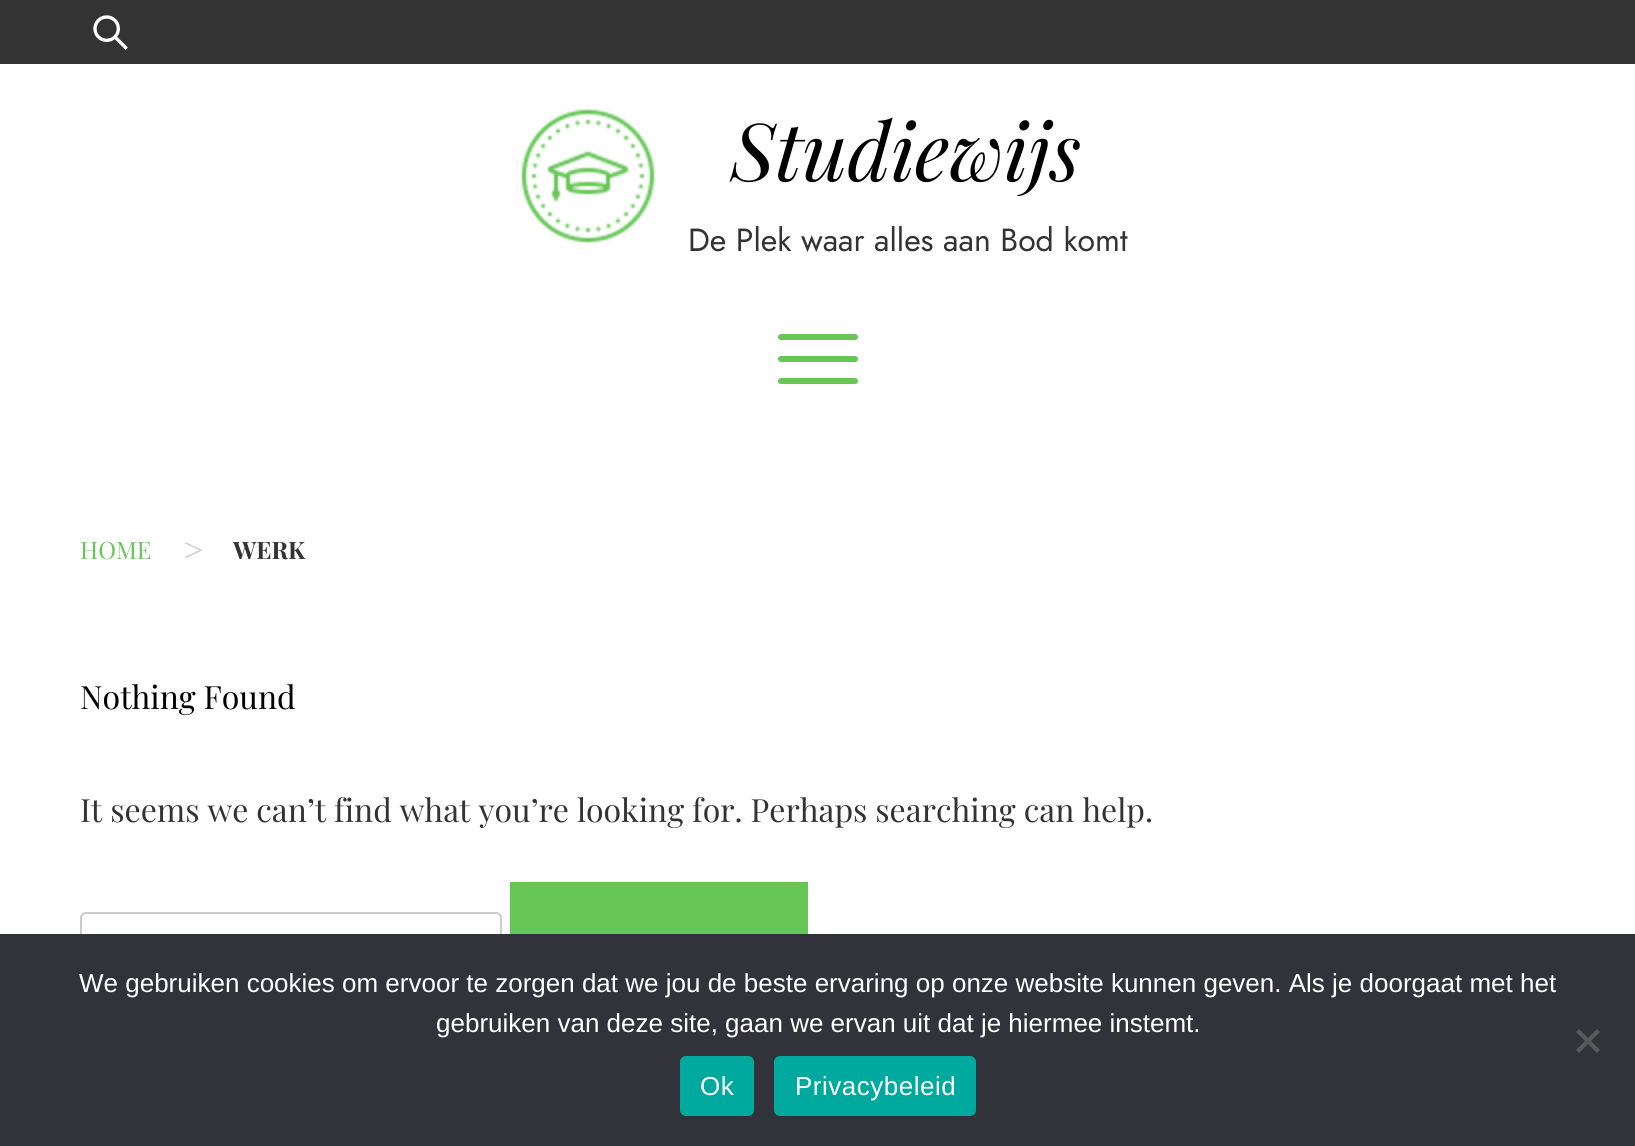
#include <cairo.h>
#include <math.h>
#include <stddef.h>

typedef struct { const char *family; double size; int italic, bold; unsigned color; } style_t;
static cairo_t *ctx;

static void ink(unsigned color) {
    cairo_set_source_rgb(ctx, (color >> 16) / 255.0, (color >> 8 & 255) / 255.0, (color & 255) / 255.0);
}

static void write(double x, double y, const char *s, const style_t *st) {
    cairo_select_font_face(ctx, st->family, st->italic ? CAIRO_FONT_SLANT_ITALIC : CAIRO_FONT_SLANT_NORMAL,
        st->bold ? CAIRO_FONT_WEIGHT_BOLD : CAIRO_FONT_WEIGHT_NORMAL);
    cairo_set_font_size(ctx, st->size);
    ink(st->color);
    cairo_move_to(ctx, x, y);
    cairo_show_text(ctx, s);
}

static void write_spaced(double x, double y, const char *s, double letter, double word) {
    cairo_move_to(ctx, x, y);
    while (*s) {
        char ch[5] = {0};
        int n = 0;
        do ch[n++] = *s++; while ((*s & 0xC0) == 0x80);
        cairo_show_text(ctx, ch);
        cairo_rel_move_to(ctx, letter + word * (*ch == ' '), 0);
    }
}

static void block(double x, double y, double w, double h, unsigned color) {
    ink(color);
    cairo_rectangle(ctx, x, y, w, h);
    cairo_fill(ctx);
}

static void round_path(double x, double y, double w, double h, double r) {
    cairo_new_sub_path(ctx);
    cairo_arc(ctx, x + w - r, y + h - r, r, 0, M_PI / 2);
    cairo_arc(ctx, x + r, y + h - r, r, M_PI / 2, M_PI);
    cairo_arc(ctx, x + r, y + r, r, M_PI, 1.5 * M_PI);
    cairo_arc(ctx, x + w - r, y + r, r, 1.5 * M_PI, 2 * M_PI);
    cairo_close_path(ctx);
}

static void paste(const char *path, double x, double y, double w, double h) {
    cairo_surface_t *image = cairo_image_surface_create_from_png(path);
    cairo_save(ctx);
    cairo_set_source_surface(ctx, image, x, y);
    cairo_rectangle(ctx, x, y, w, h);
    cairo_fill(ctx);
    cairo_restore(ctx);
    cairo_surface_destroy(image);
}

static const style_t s1 = {"Playfair Display", 80, 1, 0, 0x000000};
static const style_t s2 = {"Jost", 32, 0, 0, 0x333333};
static const style_t s3 = {"Playfair Display", 24, 0, 0, 0x66c757};
static const style_t s4 = {"Playfair Display", 36, 0, 0, 0xcccccc};
static const style_t s5 = {"Playfair Display", 24, 0, 1, 0x333333};
static const style_t s6 = {"Playfair Display", 32, 0, 0, 0x000000};
static const style_t s7 = {"Playfair Display", 32, 0, 0, 0x333333};
static const style_t s8 = {"Liberation Sans", 26, 0, 0, 0xffffff};

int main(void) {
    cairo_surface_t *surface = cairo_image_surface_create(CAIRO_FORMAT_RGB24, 1635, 1146);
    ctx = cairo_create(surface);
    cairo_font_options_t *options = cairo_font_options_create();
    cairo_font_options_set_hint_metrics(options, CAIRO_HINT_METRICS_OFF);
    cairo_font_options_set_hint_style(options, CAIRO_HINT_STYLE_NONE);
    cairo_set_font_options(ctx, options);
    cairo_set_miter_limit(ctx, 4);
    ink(0xffffff);
    cairo_paint(ctx);
    block(0, 0, 1635, 64, 0x333333);
    paste("pic1.png", 93, 15, 35, 35);
    paste("pic2.png", 521, 109, 134, 134);
    write(731, 181, "Studiewijs", &s1);
    write(688, 251, "De Plek waar alles aan Bod komt", &s2);
    ink(0x66c757);
    round_path(778, 334, 80, 6, 3);
    cairo_fill(ctx);
    round_path(778, 356, 80, 6, 3);
    cairo_fill(ctx);
    round_path(778, 378, 80, 6, 3);
    cairo_fill(ctx);
    write(80, 559, "HOME", &s3);
    write(182, 563, ">", &s4);
    write(233, 559, "WERK", &s5);
    write(80, 709, "Nothing Found", &s6);
    write(80, 822, "It seems we can’t find what you’re looking for. Perhaps searching can help.", &s7);
    round_path(81, 913, 420, 52, 5);
    ink(0xcccccc);
    cairo_stroke(ctx);
    block(510, 882, 298, 52, 0x66c757);
    block(0, 934, 1635, 212, 0x32323a);
    write(79, 992, "We gebruiken cookies om ervoor te zorgen dat we jou de beste ervaring op onze website kunnen geven. Als je doorgaat met het", &s8);
    write(436, 1032, "gebruiken van deze site, gaan we ervan uit dat je hiermee instemt.", &s8);
    ink(0x59595d);
    cairo_new_path(ctx);
    cairo_move_to(ctx, 1597, 1029);
    cairo_line_to(ctx, 1600, 1032);
    cairo_line_to(ctx, 1579, 1053);
    cairo_line_to(ctx, 1576, 1050);
    cairo_close_path(ctx);
    cairo_fill(ctx);
    cairo_new_path(ctx);
    cairo_move_to(ctx, 1576, 1032);
    cairo_line_to(ctx, 1579, 1029);
    cairo_line_to(ctx, 1600, 1050);
    cairo_line_to(ctx, 1597, 1053);
    cairo_close_path(ctx);
    cairo_fill(ctx);
    ink(0x00a99d);
    round_path(680, 1056, 74, 60, 6);
    cairo_fill(ctx);
    ink(0xffffff);
    write_spaced(700, 1095, "Ok", 0.5, 0);
    ink(0x00a99d);
    round_path(774, 1056, 202, 60, 6);
    cairo_fill(ctx);
    ink(0xffffff);
    write_spaced(795, 1095, "Privacybeleid", 0.5, 0);
    cairo_surface_write_to_png(surface, "screenshot.png");
    cairo_font_options_destroy(options);
    cairo_destroy(ctx);
    cairo_surface_destroy(surface);
    return 0;
}
